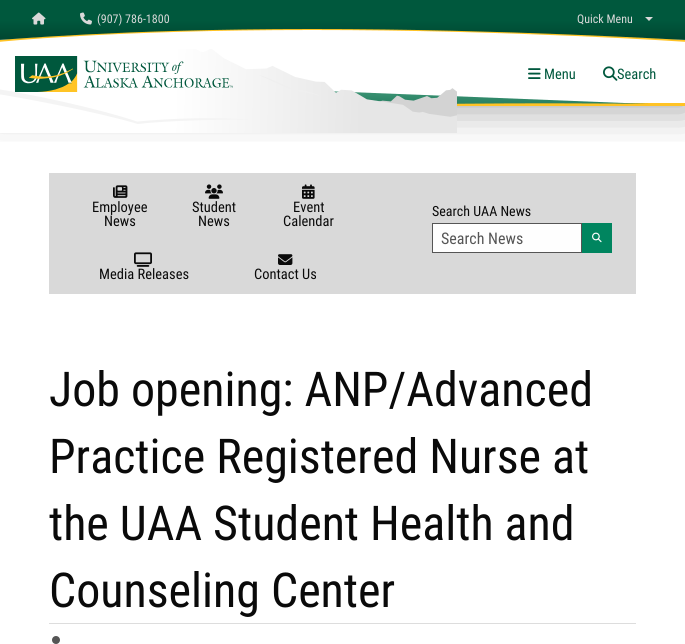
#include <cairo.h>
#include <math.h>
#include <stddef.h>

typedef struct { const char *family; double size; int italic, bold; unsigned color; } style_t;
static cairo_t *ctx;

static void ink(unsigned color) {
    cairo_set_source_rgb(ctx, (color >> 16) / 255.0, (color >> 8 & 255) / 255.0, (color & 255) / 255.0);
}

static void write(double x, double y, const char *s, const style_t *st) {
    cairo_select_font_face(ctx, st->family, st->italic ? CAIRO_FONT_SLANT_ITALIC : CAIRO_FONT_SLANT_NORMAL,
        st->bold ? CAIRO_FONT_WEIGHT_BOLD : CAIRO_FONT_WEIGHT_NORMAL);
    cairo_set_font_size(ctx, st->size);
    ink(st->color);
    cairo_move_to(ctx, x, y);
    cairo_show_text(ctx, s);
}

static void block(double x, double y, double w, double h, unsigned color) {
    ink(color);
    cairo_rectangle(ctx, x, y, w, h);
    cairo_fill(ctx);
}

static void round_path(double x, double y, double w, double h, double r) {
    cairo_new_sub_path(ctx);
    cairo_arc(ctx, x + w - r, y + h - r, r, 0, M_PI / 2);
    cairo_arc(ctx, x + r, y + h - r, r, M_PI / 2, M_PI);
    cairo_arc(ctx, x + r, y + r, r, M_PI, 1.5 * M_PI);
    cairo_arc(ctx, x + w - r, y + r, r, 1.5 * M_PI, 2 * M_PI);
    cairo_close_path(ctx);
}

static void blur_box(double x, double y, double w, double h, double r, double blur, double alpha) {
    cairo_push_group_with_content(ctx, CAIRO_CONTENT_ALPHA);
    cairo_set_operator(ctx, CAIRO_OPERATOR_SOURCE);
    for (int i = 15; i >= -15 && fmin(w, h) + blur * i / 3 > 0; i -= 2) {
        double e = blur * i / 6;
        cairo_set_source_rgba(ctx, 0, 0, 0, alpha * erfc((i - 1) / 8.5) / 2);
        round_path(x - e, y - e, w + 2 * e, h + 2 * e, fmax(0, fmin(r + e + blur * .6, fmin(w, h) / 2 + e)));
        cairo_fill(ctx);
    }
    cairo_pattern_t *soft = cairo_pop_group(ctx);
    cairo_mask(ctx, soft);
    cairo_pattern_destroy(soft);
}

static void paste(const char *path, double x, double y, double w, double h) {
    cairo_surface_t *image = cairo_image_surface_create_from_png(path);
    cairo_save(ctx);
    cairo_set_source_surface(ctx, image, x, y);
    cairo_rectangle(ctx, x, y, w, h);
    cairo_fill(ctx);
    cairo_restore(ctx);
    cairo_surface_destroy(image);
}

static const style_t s1 = {"Roboto Condensed", 12, 0, 0, 0xd9d9d9};
static const style_t s2 = {"Roboto Condensed", 14.5, 0, 0, 0x00583d};
static const style_t s3 = {"Roboto Condensed", 14.5, 0, 0, 0x0a0a0a};
static const style_t s4 = {"Roboto Condensed", 14, 0, 0, 0x0a0a0a};
static const style_t s5 = {"Roboto Condensed", 16, 0, 0, 0x555555};
static const style_t s6 = {"Roboto Condensed", 48, 0, 0, 0x0a0a0a};

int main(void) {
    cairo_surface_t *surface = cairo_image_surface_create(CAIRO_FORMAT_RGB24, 685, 644);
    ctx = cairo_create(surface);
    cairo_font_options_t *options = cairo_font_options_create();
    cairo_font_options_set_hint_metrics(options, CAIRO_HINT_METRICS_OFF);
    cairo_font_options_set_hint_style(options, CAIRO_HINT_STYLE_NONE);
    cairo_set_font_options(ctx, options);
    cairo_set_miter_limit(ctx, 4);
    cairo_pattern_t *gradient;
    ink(0xffffff);
    cairo_paint(ctx);
    cairo_save(ctx);
    cairo_rectangle(ctx, 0, 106, 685, 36);
    cairo_clip(ctx);
    ink(0x000000);
    blur_box(-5, 16, 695, 95, 0, 20, 0.33);
    cairo_restore(ctx);
    block(0, 0, 685, 9, 0x00583d);
    cairo_save(ctx);
    cairo_rectangle(ctx, 0, 9, 685, 35);
    cairo_clip(ctx);
    ink(0xffc325);
    cairo_new_path(ctx);
    cairo_move_to(ctx, 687, 8);
    cairo_line_to(ctx, 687, 40);
    cairo_curve_to(ctx, 675, 39, 504, 28, 312, 28);
    cairo_curve_to(ctx, 121, 28, 8, 39, -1, 40);
    cairo_line_to(ctx, -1, 8);
    cairo_line_to(ctx, 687, 8);
    cairo_move_to(ctx, 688, 7);
    cairo_line_to(ctx, -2, 7);
    cairo_line_to(ctx, -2, 42);
    cairo_curve_to(ctx, -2, 42, 110, 30, 312, 30);
    cairo_curve_to(ctx, 513, 30, 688, 42, 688, 42);
    cairo_close_path(ctx);
    cairo_fill(ctx);
    gradient = cairo_pattern_create_linear(343, 40, 343, 7.6);
    cairo_pattern_add_color_stop_rgba(gradient, 0, 0, 0.275, 0.192, 1);
    cairo_pattern_add_color_stop_rgba(gradient, 0.6, 0, 0.345, 0.239, 1);
    cairo_set_source(ctx, gradient);
    cairo_pattern_destroy(gradient);
    cairo_new_path(ctx);
    cairo_move_to(ctx, 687, 40);
    cairo_curve_to(ctx, 678, 40, 507, 29, 312, 29);
    cairo_curve_to(ctx, 118, 29, 5, 40, -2, 40);
    cairo_line_to(ctx, -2, 8);
    cairo_line_to(ctx, 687, 8);
    cairo_close_path(ctx);
    cairo_fill(ctx);
    cairo_restore(ctx);
    paste("pic1.png", 32, 12, 14, 13);
    paste("pic2.png", 80, 12, 12, 13);
    write(97, 23, "(907) 786-1800", &s1);
    write(577, 23, "Quick Menu", &s1);
    cairo_new_path(ctx);
    cairo_move_to(ctx, 645, 17);
    cairo_line_to(ctx, 653, 17);
    cairo_line_to(ctx, 649, 21);
    cairo_close_path(ctx);
    cairo_fill(ctx);
    block(457, 103, 228, 3, 0xffc325);
    paste("pic5.png", 528, 68, 13, 11);
    write(544, 79, "Menu", &s2);
    paste("pic6.png", 603, 66, 15, 15);
    write(617, 79, "Search", &s2);
    gradient = cairo_pattern_create_linear(323, 78, 323, 132);
    cairo_pattern_add_color_stop_rgba(gradient, 0, 0.306, 0.651, 0.522, 1);
    cairo_pattern_add_color_stop_rgba(gradient, 1, 0, 0.345, 0.239, 1);
    cairo_set_source(ctx, gradient);
    cairo_pattern_destroy(gradient);
    cairo_new_path(ctx);
    cairo_move_to(ctx, -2, 78);
    cairo_line_to(ctx, 649, 104);
    cairo_curve_to(ctx, 610, 103, 136, 99, -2, 132);
    cairo_close_path(ctx);
    cairo_fill(ctx);
    paste("pic3.png", 0, 49, 457, 84);
    paste("pic4.png", 15, 56, 218, 36);
    block(49, 173, 587, 121, 0xd9d9d9);
    paste("pic7.png", 113, 185, 15, 13);
    write(92, 212, "Employee", &s3);
    write(104, 226, "News", &s3);
    paste("pic8.png", 205, 184, 18, 15);
    write(192, 212, "Student", &s3);
    write(198, 226, "News", &s3);
    paste("pic9.png", 302, 184, 13, 15);
    write(293, 212, "Event", &s3);
    write(283, 226, "Calendar", &s3);
    paste("pic10.png", 134, 252, 18, 15);
    write(99, 279, "Media Releases", &s3);
    paste("pic11.png", 278, 254, 15, 11);
    write(254, 279, "Contact Us", &s3);
    write(432, 216, "Search UAA News", &s4);
    ink(0xfefefe);
    cairo_rectangle(ctx, 432.5, 223.5, 149, 29);
    cairo_fill_preserve(ctx);
    ink(0x555555);
    cairo_set_line_width(ctx, 1);
    cairo_stroke(ctx);
    write(441, 244, "Search News", &s5);
    block(582, 223, 30, 30, 0x00855f);
    paste("pic12.png", 592, 232, 10, 11);
    block(49, 623, 587, 1, 0xdddddd);
    write(49, 406, "Job opening: ANP/Advanced", &s6);
    write(49, 473, "Practice Registered Nurse at", &s6);
    write(49, 540, "the UAA Student Health and", &s6);
    write(49, 607, "Counseling Center", &s6);
    paste("pic13.png", 52, 636, 8, 8);
    cairo_surface_write_to_png(surface, "screenshot.png");
    cairo_font_options_destroy(options);
    cairo_destroy(ctx);
    cairo_surface_destroy(surface);
    return 0;
}
